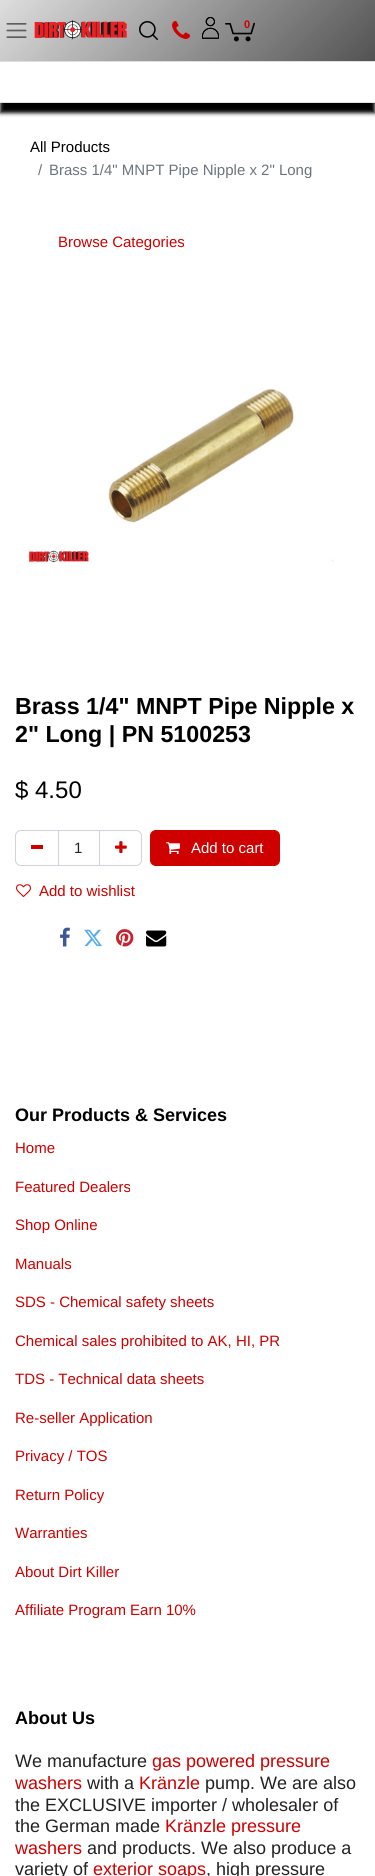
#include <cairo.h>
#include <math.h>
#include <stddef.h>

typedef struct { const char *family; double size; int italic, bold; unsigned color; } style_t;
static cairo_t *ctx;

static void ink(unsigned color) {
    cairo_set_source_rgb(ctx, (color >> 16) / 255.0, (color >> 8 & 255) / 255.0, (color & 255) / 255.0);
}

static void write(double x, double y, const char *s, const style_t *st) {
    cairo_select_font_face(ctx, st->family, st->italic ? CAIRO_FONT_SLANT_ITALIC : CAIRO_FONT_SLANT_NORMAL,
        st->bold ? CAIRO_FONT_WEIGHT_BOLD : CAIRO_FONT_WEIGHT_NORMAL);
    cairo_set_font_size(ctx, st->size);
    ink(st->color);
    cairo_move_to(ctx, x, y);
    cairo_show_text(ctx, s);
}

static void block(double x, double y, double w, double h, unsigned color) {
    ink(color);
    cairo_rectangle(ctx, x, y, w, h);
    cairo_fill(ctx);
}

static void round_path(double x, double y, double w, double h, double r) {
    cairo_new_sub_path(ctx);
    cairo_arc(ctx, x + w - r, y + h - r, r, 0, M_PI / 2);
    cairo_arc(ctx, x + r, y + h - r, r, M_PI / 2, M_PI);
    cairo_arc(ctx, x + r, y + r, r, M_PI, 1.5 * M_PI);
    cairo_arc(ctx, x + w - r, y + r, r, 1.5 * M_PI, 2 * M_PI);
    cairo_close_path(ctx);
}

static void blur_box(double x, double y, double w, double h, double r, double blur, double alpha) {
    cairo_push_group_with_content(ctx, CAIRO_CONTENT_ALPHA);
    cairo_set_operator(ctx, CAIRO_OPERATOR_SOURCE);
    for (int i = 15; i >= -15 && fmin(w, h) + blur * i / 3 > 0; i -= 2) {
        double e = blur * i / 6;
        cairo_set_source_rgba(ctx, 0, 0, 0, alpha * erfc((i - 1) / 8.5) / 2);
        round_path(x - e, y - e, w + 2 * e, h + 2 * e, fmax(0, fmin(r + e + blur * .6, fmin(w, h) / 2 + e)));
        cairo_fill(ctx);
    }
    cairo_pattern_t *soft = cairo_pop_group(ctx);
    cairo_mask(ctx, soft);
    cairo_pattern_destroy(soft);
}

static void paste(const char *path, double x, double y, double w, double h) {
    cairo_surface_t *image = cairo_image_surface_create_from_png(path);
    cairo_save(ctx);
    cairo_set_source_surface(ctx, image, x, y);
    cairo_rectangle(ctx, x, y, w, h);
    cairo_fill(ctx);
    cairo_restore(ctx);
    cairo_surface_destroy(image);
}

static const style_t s1 = {"Liberation Sans", 11, 0, 1, 0xce0000};
static const style_t s2 = {"Liberation Sans", 15, 0, 0, 0x000000};
static const style_t s3 = {"Liberation Sans", 15, 0, 0, 0x6c757d};
static const style_t s4 = {"Liberation Sans", 15, 0, 0, 0xce0000};
static const style_t s5 = {"Liberation Sans", 23.25, 0, 1, 0x000000};
static const style_t s6 = {"Liberation Sans", 24, 0, 0, 0x000000};
static const style_t s7 = {"Liberation Sans", 15, 0, 0, 0x212529};
static const style_t s8 = {"Liberation Sans", 15, 0, 0, 0xffffff};
static const style_t s9 = {"Liberation Sans", 18, 0, 1, 0x000000};
static const style_t s10 = {"Liberation Sans", 18, 0, 0, 0x222222};
static const style_t s11 = {"Liberation Sans", 18, 0, 0, 0xce0000};

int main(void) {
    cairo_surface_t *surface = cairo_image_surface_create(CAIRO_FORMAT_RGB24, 375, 1876);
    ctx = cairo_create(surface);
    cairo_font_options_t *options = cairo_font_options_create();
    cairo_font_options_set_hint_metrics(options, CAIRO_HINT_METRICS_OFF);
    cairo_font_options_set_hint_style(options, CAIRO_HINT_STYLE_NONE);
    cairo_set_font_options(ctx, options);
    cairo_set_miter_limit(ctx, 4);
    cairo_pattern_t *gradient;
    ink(0xffffff);
    cairo_paint(ctx);
    ink(0x000000);
    blur_box(0, 10, 375, 103, 0, 2, 1);
    gradient = cairo_pattern_create_linear(68, -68, 307, 171);
    cairo_pattern_add_color_stop_rgba(gradient, 0, 0.871, 0.871, 0.871, 1);
    cairo_pattern_add_color_stop_rgba(gradient, 1, 0.271, 0.271, 0.271, 1);
    cairo_set_source(ctx, gradient);
    cairo_pattern_destroy(gradient);
    cairo_rectangle(ctx, 0, 0, 375, 61);
    cairo_fill(ctx);
    paste("pic1.png", 6, 23, 21, 15);
    paste("pic2.png", 34, 20, 93, 20);
    paste("pic3.png", 139, 21, 19, 19);
    paste("pic4.png", 172, 20, 19, 19);
    paste("pic5.png", 202, 17, 17, 22);
    paste("pic6.png", 202, 17, 17, 22);
    paste("pic7.png", 225, 22, 30, 20);
    write(244, 28, "0", &s1);
    block(0, 62, 375, 40, 0xffffff);
    block(0, 61, 375, 1, 0xdededf);
    block(0, 102, 375, 1, 0xdee2e6);
    write(30, 152, "All Products", &s2);
    write(38, 175, "/", &s3);
    write(49, 175, "Brass 1/4\" MNPT Pipe Nipple x 2\" Long", &s3);
    write(58, 247, "Browse Categories", &s4);
    paste("pic8.png", 28, 388, 306, 175);
    write(15, 714, "Brass 1/4\" MNPT Pipe Nipple x", &s5);
    write(15, 742, "2\" Long | PN 5100253", &s5);
    write(15, 798, "$ 4.50", &s6);
    cairo_rectangle(ctx, 58.5, 830.5, 41, 35);
    ink(0xced4da);
    cairo_set_line_width(ctx, 1);
    cairo_stroke(ctx);
    cairo_new_path(ctx);
    cairo_move_to(ctx, 21, 830.5);
    cairo_line_to(ctx, 58.5, 830.5);
    cairo_line_to(ctx, 58.5, 865.5);
    cairo_line_to(ctx, 21, 865.5);
    cairo_curve_to(ctx, 18, 865.5, 15.5, 863, 15.5, 860);
    cairo_line_to(ctx, 15.5, 836);
    cairo_curve_to(ctx, 15.5, 833, 18, 830.5, 21, 830.5);
    cairo_close_path(ctx);
    cairo_stroke(ctx);
    block(31, 845, 12, 4, 0xce0000);
    write(74, 853, "1", &s7);
    cairo_new_path(ctx);
    cairo_move_to(ctx, 99.5, 830.5);
    cairo_line_to(ctx, 136, 830.5);
    cairo_curve_to(ctx, 139, 830.5, 141.5, 833, 141.5, 836);
    cairo_line_to(ctx, 141.5, 860);
    cairo_curve_to(ctx, 141.5, 863, 139, 865.5, 136, 865.5);
    cairo_line_to(ctx, 99.5, 865.5);
    cairo_close_path(ctx);
    ink(0xced4da);
    cairo_stroke(ctx);
    paste("pic9.png", 115, 841, 12, 12);
    ink(0xce0000);
    round_path(150.5, 830.5, 129, 35, 5.5);
    cairo_fill_preserve(ctx);
    cairo_stroke(ctx);
    paste("pic10.png", 166, 842, 14, 13);
    write(191, 853, "Add to cart", &s8);
    paste("pic11.png", 16, 884, 15, 13);
    write(39, 896, "Add to wishlist", &s4);
    paste("pic12.png", 60, 927, 10, 20);
    paste("pic13.png", 84, 929, 18, 18);
    paste("pic14.png", 116, 929, 18, 18);
    paste("pic15.png", 146, 930, 21, 17);
    write(15, 1121, "Our Products & Services", &s9);
    write(15, 1153, "Home", &s4);
    write(15, 1192, "Featured Dealers", &s4);
    write(15, 1230, "Shop Online", &s4);
    write(15, 1269, "Manuals", &s4);
    write(15, 1307, "SDS - Chemical safety sheets", &s4);
    write(15, 1346, "Chemical sales prohibited to AK, HI, PR", &s4);
    write(15, 1384, "TDS - Technical data sheets", &s4);
    write(15, 1423, "Re-seller Application", &s4);
    write(15, 1461, "Privacy / TOS", &s4);
    write(15, 1500, "Return Policy", &s4);
    write(15, 1538, "Warranties", &s4);
    write(15, 1577, "About Dirt Killer", &s4);
    write(15, 1615, "Affiliate Program Earn 10%", &s4);
    write(15, 1724, "About Us", &s9);
    write(15, 1767, "We manufacture", &s10);
    write(152, 1767, "gas powered pressure", &s11);
    write(15, 1789, "washers", &s11);
    write(87, 1789, "with a", &s10);
    write(139, 1789, "Kränzle", &s11);
    write(205, 1789, "pump. We are also", &s10);
    write(15, 1811, "the EXCLUSIVE importer / wholesaler of", &s10);
    write(15, 1832, "the German made", &s10);
    write(165, 1832, "Kränzle pressure", &s11);
    write(15, 1854, "washers", &s11);
    write(87, 1854, "and products. We also produce a", &s10);
    write(15, 1875, "variety of", &s10);
    write(93, 1875, "exterior soaps", &s11);
    write(206, 1875, ", high pressure", &s10);
    cairo_surface_write_to_png(surface, "screenshot.png");
    cairo_font_options_destroy(options);
    cairo_destroy(ctx);
    cairo_surface_destroy(surface);
    return 0;
}
